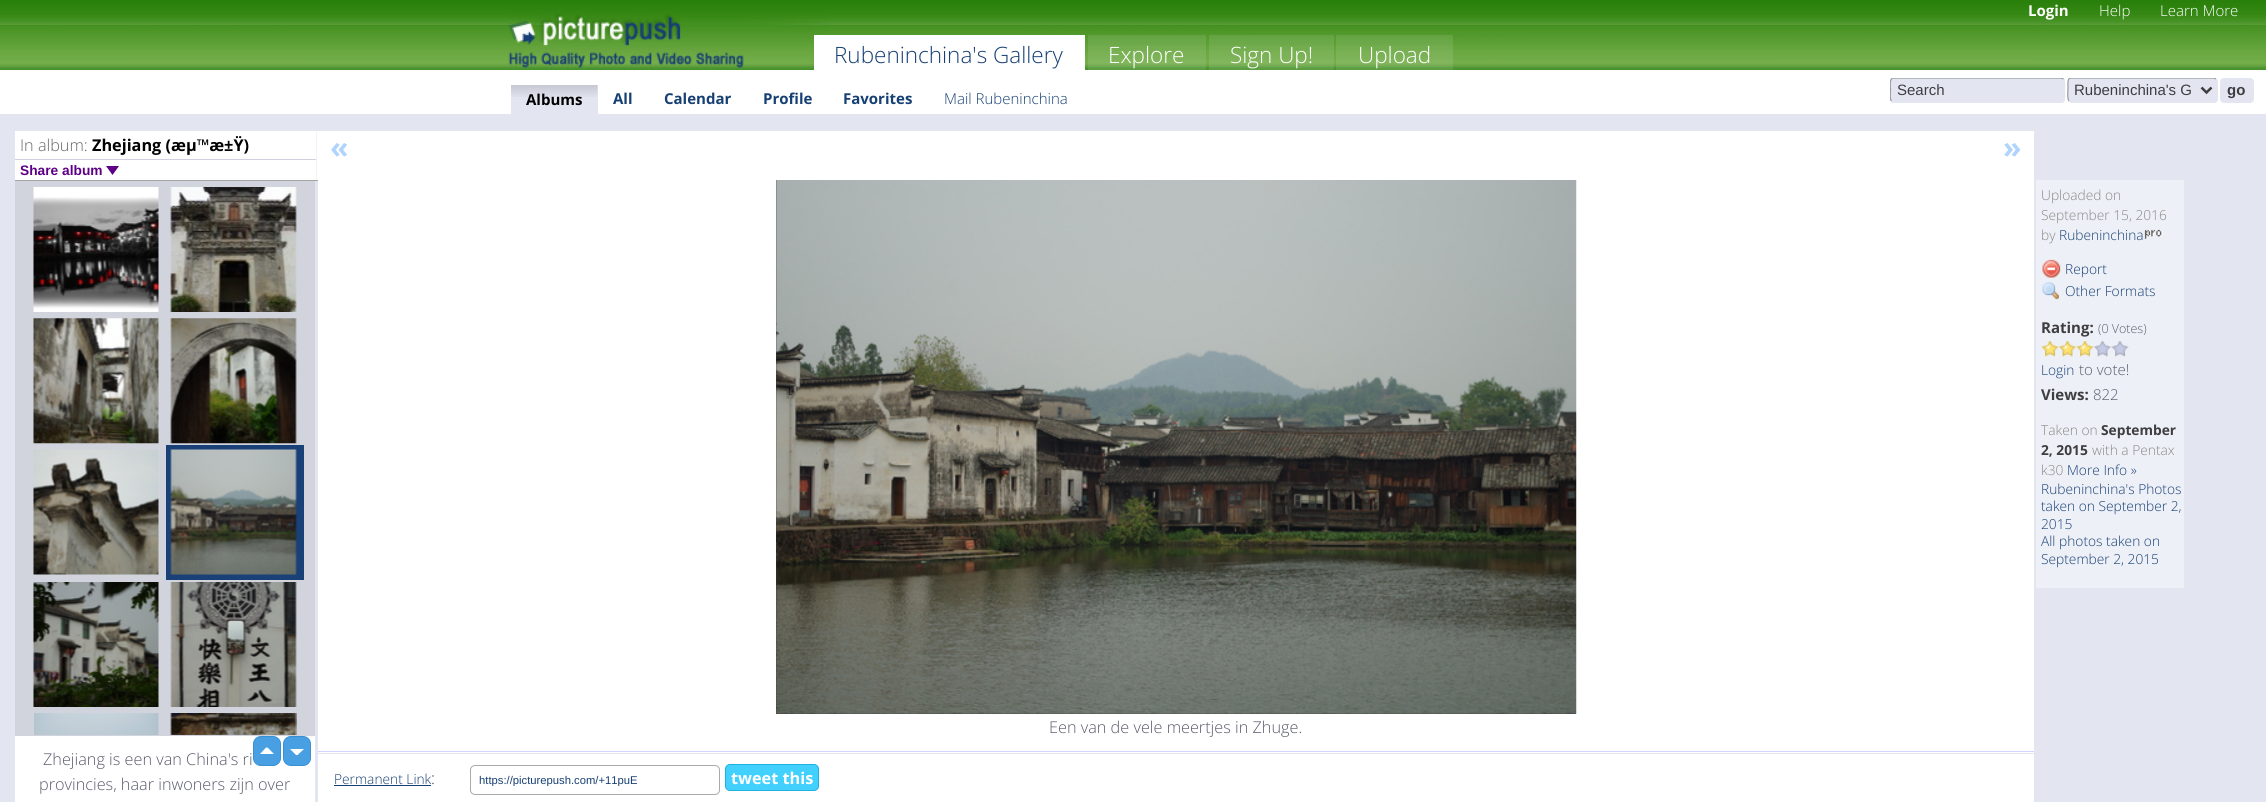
#include <cairo.h>
#include <math.h>
#include <stddef.h>

typedef struct { const char *family; double size; int italic, bold; unsigned color; } style_t;
static cairo_t *ctx;

static void ink(unsigned color) {
    cairo_set_source_rgb(ctx, (color >> 16) / 255.0, (color >> 8 & 255) / 255.0, (color & 255) / 255.0);
}

static void write(double x, double y, const char *s, const style_t *st) {
    cairo_select_font_face(ctx, st->family, st->italic ? CAIRO_FONT_SLANT_ITALIC : CAIRO_FONT_SLANT_NORMAL,
        st->bold ? CAIRO_FONT_WEIGHT_BOLD : CAIRO_FONT_WEIGHT_NORMAL);
    cairo_set_font_size(ctx, st->size);
    ink(st->color);
    cairo_move_to(ctx, x, y);
    cairo_show_text(ctx, s);
}

static void block(double x, double y, double w, double h, unsigned color) {
    ink(color);
    cairo_rectangle(ctx, x, y, w, h);
    cairo_fill(ctx);
}

static void round_path(double x, double y, double w, double h, double r) {
    cairo_new_sub_path(ctx);
    cairo_arc(ctx, x + w - r, y + h - r, r, 0, M_PI / 2);
    cairo_arc(ctx, x + r, y + h - r, r, M_PI / 2, M_PI);
    cairo_arc(ctx, x + r, y + r, r, M_PI, 1.5 * M_PI);
    cairo_arc(ctx, x + w - r, y + r, r, 1.5 * M_PI, 2 * M_PI);
    cairo_close_path(ctx);
}

static void paste(const char *path, double x, double y, double w, double h) {
    cairo_surface_t *image = cairo_image_surface_create_from_png(path);
    cairo_save(ctx);
    cairo_set_source_surface(ctx, image, x, y);
    cairo_rectangle(ctx, x, y, w, h);
    cairo_fill(ctx);
    cairo_restore(ctx);
    cairo_surface_destroy(image);
}

static const style_t s1 = {"Open Sans Light", 22.5, 0, 0, 0x163f73};
static const style_t s2 = {"Open Sans Light", 22.5, 0, 0, 0xffffff};
static const style_t s3 = {"Open Sans", 15, 0, 1, 0xffffff};
static const style_t s4 = {"Open Sans Light", 15, 0, 0, 0xffffff};
static const style_t s5 = {"Open Sans", 15, 0, 1, 0x000000};
static const style_t s6 = {"Open Sans", 15, 0, 1, 0x163f73};
static const style_t s7 = {"Open Sans Light", 15, 0, 0, 0x163f73};
static const style_t s8 = {"Liberation Sans", 15, 0, 0, 0x3e3e41};
static const style_t s9 = {"Liberation Sans", 15, 0, 1, 0x3e3e41};
static const style_t s10 = {"Open Sans Light", 16.25, 0, 0, 0x666666};
static const style_t s11 = {"Open Sans", 16.25, 0, 1, 0x000000};
static const style_t s12 = {"Liberation Sans", 13.75, 0, 1, 0x5e0085};
static const style_t s13 = {"Open Sans Light", 16.25, 0, 0, 0x5a5c6c};
static const style_t s14 = {"Open Sans", 30, 0, 1, 0xb0d4fe};
static const style_t s15 = {"Open Sans Light", 13.75, 0, 0, 0x888888};
static const style_t s16 = {"Open Sans Light", 13.75, 0, 0, 0x163f73};
static const style_t s17 = {"Open Sans", 15, 0, 1, 0x3e3e41};
static const style_t s18 = {"Open Sans Light", 12.5, 0, 0, 0x5a5c6c};
static const style_t s19 = {"Open Sans Light", 15, 0, 0, 0x5a5c6c};
static const style_t s20 = {"Open Sans", 13.75, 0, 1, 0x3e3e41};
static const style_t s21 = {"Open Sans Light", 16.25, 0, 0, 0x3e3e41};
static const style_t s22 = {"Liberation Sans", 11.25, 0, 0, 0x163f73};
static const style_t s23 = {"Open Sans", 16.25, 0, 1, 0xffffff};

int main(void) {
    cairo_surface_t *surface = cairo_image_surface_create(CAIRO_FORMAT_RGB24, 2266, 802);
    ctx = cairo_create(surface);
    cairo_font_options_t *options = cairo_font_options_create();
    cairo_font_options_set_hint_metrics(options, CAIRO_HINT_METRICS_OFF);
    cairo_font_options_set_hint_style(options, CAIRO_HINT_STYLE_NONE);
    cairo_set_font_options(ctx, options);
    cairo_set_miter_limit(ctx, 4);
    ink(0xe3e6f1);
    cairo_paint(ctx);
    paste("pic1.png", 0, 0, 2266, 70);
    paste("pic2.png", 508, 10, 320, 60);
    block(814, 35, 271, 35, 0xffffff);
    write(834, 63, "Rubeninchina's Gallery", &s1);
    cairo_set_source_rgba(ctx, 1, 1, 1, 0.1);
    cairo_rectangle(ctx, 1088, 35, 118, 35);
    cairo_fill(ctx);
    write(1108, 63, "Explore", &s2);
    cairo_set_source_rgba(ctx, 1, 1, 1, 0.1);
    cairo_rectangle(ctx, 1209, 35, 125, 35);
    cairo_fill(ctx);
    write(1230, 63, "Sign Up!", &s2);
    cairo_set_source_rgba(ctx, 1, 1, 1, 0.1);
    cairo_rectangle(ctx, 1336, 35, 117, 35);
    cairo_fill(ctx);
    write(1358, 63, "Upload", &s2);
    write(2028, 16, "Login", &s3);
    write(2099, 16, "Help", &s4);
    write(2160, 16, "Learn More", &s4);
    block(0, 70, 2266, 44, 0xffffff);
    block(511, 85, 87, 29, 0xe3e6f1);
    paste("pic3.png", 511, 85, 87, 12);
    write(526, 105, "Albums", &s5);
    write(613, 104, "All", &s6);
    write(664, 104, "Calendar", &s6);
    write(763, 104, "Profile", &s6);
    write(843, 104, "Favorites", &s6);
    write(944, 104, "Mail Rubeninchina", &s7);
    ink(0xe3e6f1);
    round_path(1890, 78, 175, 25, 4);
    cairo_fill(ctx);
    cairo_new_path(ctx);
    cairo_move_to(ctx, 2063.5, 79);
    cairo_curve_to(ctx, 2065.5, 81, 2064.5, 87.5, 2064.5, 90);
    cairo_curve_to(ctx, 2064.5, 92.5, 2066, 101, 2062, 102);
    cairo_line_to(ctx, 1894, 102);
    cairo_line_to(ctx, 1891.5, 101);
    cairo_set_line_width(ctx, 1.2);
    cairo_stroke(ctx);
    cairo_save(ctx);
    cairo_rectangle(ctx, 1890, 78, 364, 30);
    cairo_clip(ctx);
    cairo_new_path(ctx);
    cairo_move_to(ctx, 1891.5, 101);
    cairo_curve_to(ctx, 1889.5, 99, 1890.5, 92.5, 1890.5, 90);
    cairo_curve_to(ctx, 1890.5, 87.5, 1889, 79, 1893, 78);
    cairo_line_to(ctx, 2061, 78);
    cairo_line_to(ctx, 2063.5, 79);
    ink(0x9799a1);
    cairo_stroke(ctx);
    cairo_restore(ctx);
    write(1897, 95, "Search", &s8);
    ink(0xe3e6f1);
    round_path(2068, 78, 150, 25, 4);
    cairo_fill(ctx);
    cairo_new_path(ctx);
    cairo_move_to(ctx, 2216, 79);
    cairo_curve_to(ctx, 2218, 81, 2217, 90, 2217, 93);
    cairo_curve_to(ctx, 2217, 95.5, 2218, 102, 2214, 102);
    cairo_line_to(ctx, 2071, 102);
    cairo_line_to(ctx, 2069, 101);
    cairo_stroke(ctx);
    cairo_save(ctx);
    cairo_rectangle(ctx, 1890, 78, 364, 30);
    cairo_clip(ctx);
    cairo_new_path(ctx);
    cairo_move_to(ctx, 2069, 101);
    cairo_curve_to(ctx, 2067, 99, 2068, 90, 2068, 87);
    cairo_curve_to(ctx, 2068, 84.5, 2067, 78, 2071, 78);
    cairo_line_to(ctx, 2214, 78);
    cairo_line_to(ctx, 2216, 79);
    ink(0x9799a1);
    cairo_stroke(ctx);
    cairo_restore(ctx);
    cairo_new_path(ctx);
    cairo_move_to(ctx, 2201.5, 87.5);
    cairo_line_to(ctx, 2206.5, 92.5);
    cairo_line_to(ctx, 2211.5, 87.5);
    ink(0x3e3e3e);
    cairo_set_line_width(ctx, 2.5);
    cairo_stroke(ctx);
    write(2074, 95, "Rubeninchina's G", &s8);
    ink(0xe3e6f1);
    round_path(2220.5, 78.5, 33, 24, 3.5);
    cairo_fill_preserve(ctx);
    cairo_set_line_width(ctx, 1);
    cairo_stroke(ctx);
    write(2227, 95, "go", &s9);
    block(15, 131, 303, 49, 0xffffff);
    block(316, 131, 1, 50, 0xf3f3f3);
    block(15, 180, 303, 1, 0xa4a4a4);
    write(20, 151, "In album:", &s10);
    write(92, 151, "Zhejiang (æµ™æ±Ÿ)", &s11);
    block(15, 159, 301, 1, 0xd0d0e0);
    write(20, 175, "Share album", &s12);
    cairo_new_path(ctx);
    cairo_move_to(ctx, 106, 166);
    cairo_line_to(ctx, 119, 166);
    cairo_line_to(ctx, 112.5, 175);
    cairo_close_path(ctx);
    cairo_fill(ctx);
    block(15, 181, 300, 555, 0xd1d4dd);
    paste("pic4.png", 33, 187, 126, 125);
    paste("pic5.png", 170, 187, 127, 125);
    paste("pic6.png", 33, 318, 126, 126);
    paste("pic7.png", 170, 318, 127, 126);
    paste("pic8.png", 33, 449, 126, 126);
    block(166, 445, 138, 135, 0x194077);
    paste("pic9.png", 170, 449, 127, 126);
    paste("pic10.png", 33, 582, 126, 125);
    paste("pic11.png", 170, 582, 127, 125);
    paste("pic12.png", 34, 713, 125, 22);
    paste("pic13.png", 170, 713, 127, 22);
    block(15, 736, 300, 66, 0xffffff);
    ink(0x48a0e3);
    round_path(253.5, 736.5, 27, 29, 7.5);
    cairo_fill_preserve(ctx);
    ink(0x3890d3);
    cairo_stroke(ctx);
    ink(0x48a0e3);
    round_path(283.5, 736.5, 27, 29, 7.5);
    cairo_fill_preserve(ctx);
    ink(0x3890d3);
    cairo_stroke(ctx);
    ink(0xffffff);
    cairo_new_path(ctx);
    cairo_move_to(ctx, 274, 754);
    cairo_line_to(ctx, 260, 754);
    cairo_line_to(ctx, 266, 747.5);
    cairo_line_to(ctx, 267.5, 747.5);
    cairo_close_path(ctx);
    cairo_move_to(ctx, 290, 749);
    cairo_line_to(ctx, 304, 749);
    cairo_line_to(ctx, 297.5, 755);
    cairo_line_to(ctx, 296, 755);
    cairo_close_path(ctx);
    cairo_fill(ctx);
    write(43, 765, "Zhejiang is een van China's ri", &s13);
    write(39, 790, "provincies, haar inwoners zijn over", &s13);
    block(318, 131, 1716, 622, 0xffffff);
    block(318, 751, 1716, 1, 0xcfd4ff);
    write(330, 158, "«", &s14);
    write(2003, 158, "»", &s14);
    block(776, 180, 800, 534, 0x333333);
    paste("pic14.png", 776, 180, 801, 534);
    block(2036, 180, 148, 408, 0xeef0f7);
    write(2041, 200, "Uploaded on", &s15);
    write(2041, 220, "September 15, 2016", &s15);
    write(2041, 240, "by", &s15);
    write(2059, 240, "Rubeninchina", &s16);
    paste("pic15.png", 2144, 229, 19, 10);
    paste("pic16.png", 2042, 259, 19, 19);
    write(2065, 274, "Report", &s16);
    paste("pic17.png", 2042, 282, 17, 18);
    write(2065, 296, "Other Formats", &s16);
    write(2041, 333, "Rating:", &s17);
    write(2098, 333, "(0 Votes)", &s18);
    paste("pic18.png", 2041, 340, 18, 17);
    paste("pic19.png", 2058, 340, 19, 17);
    paste("pic20.png", 2076, 340, 18, 17);
    paste("pic21.png", 2093, 340, 19, 17);
    paste("pic22.png", 2111, 340, 18, 17);
    write(2041, 375, "Login", &s16);
    write(2079, 375, "to vote!", &s19);
    write(2041, 400, "Views:", &s17);
    write(2093, 400, "822", &s19);
    write(2041, 435, "Taken on", &s15);
    write(2101, 435, "September", &s20);
    write(2041, 455, "2, 2015", &s20);
    write(2092, 455, "with a Pentax", &s15);
    write(2041, 475, "k30", &s15);
    write(2067, 475, "More Info »", &s16);
    write(2041, 494, "Rubeninchina's Photos", &s16);
    write(2041, 511, "taken on September 2,", &s16);
    write(2041, 529, "2015", &s16);
    write(2041, 546, "All photos taken on", &s16);
    write(2041, 564, "September 2, 2015", &s16);
    write(1049, 733, "Een van de vele meertjes in Zhuge.", &s13);
    block(318, 754, 1716, 48, 0xffffff);
    write(334, 784, "Permanent Link", &s16);
    block(334, 785, 97, 1, 0x163f73);
    write(431, 784, ":", &s21);
    round_path(470.5, 765.5, 249, 29, 4.5);
    ink(0xaaaaaa);
    cairo_stroke(ctx);
    cairo_save(ctx);
    cairo_rectangle(ctx, 479, 774, 232, 12);
    cairo_clip(ctx);
    write(479, 784, "https://picturepush.com/+11puE", &s22);
    cairo_restore(ctx);
    ink(0x42d0ff);
    round_path(725.5, 764.5, 93, 26, 4.5);
    cairo_fill_preserve(ctx);
    ink(0x22b0df);
    cairo_stroke(ctx);
    write(731, 784, "tweet this", &s23);
    cairo_surface_write_to_png(surface, "screenshot.png");
    cairo_font_options_destroy(options);
    cairo_destroy(ctx);
    cairo_surface_destroy(surface);
    return 0;
}
